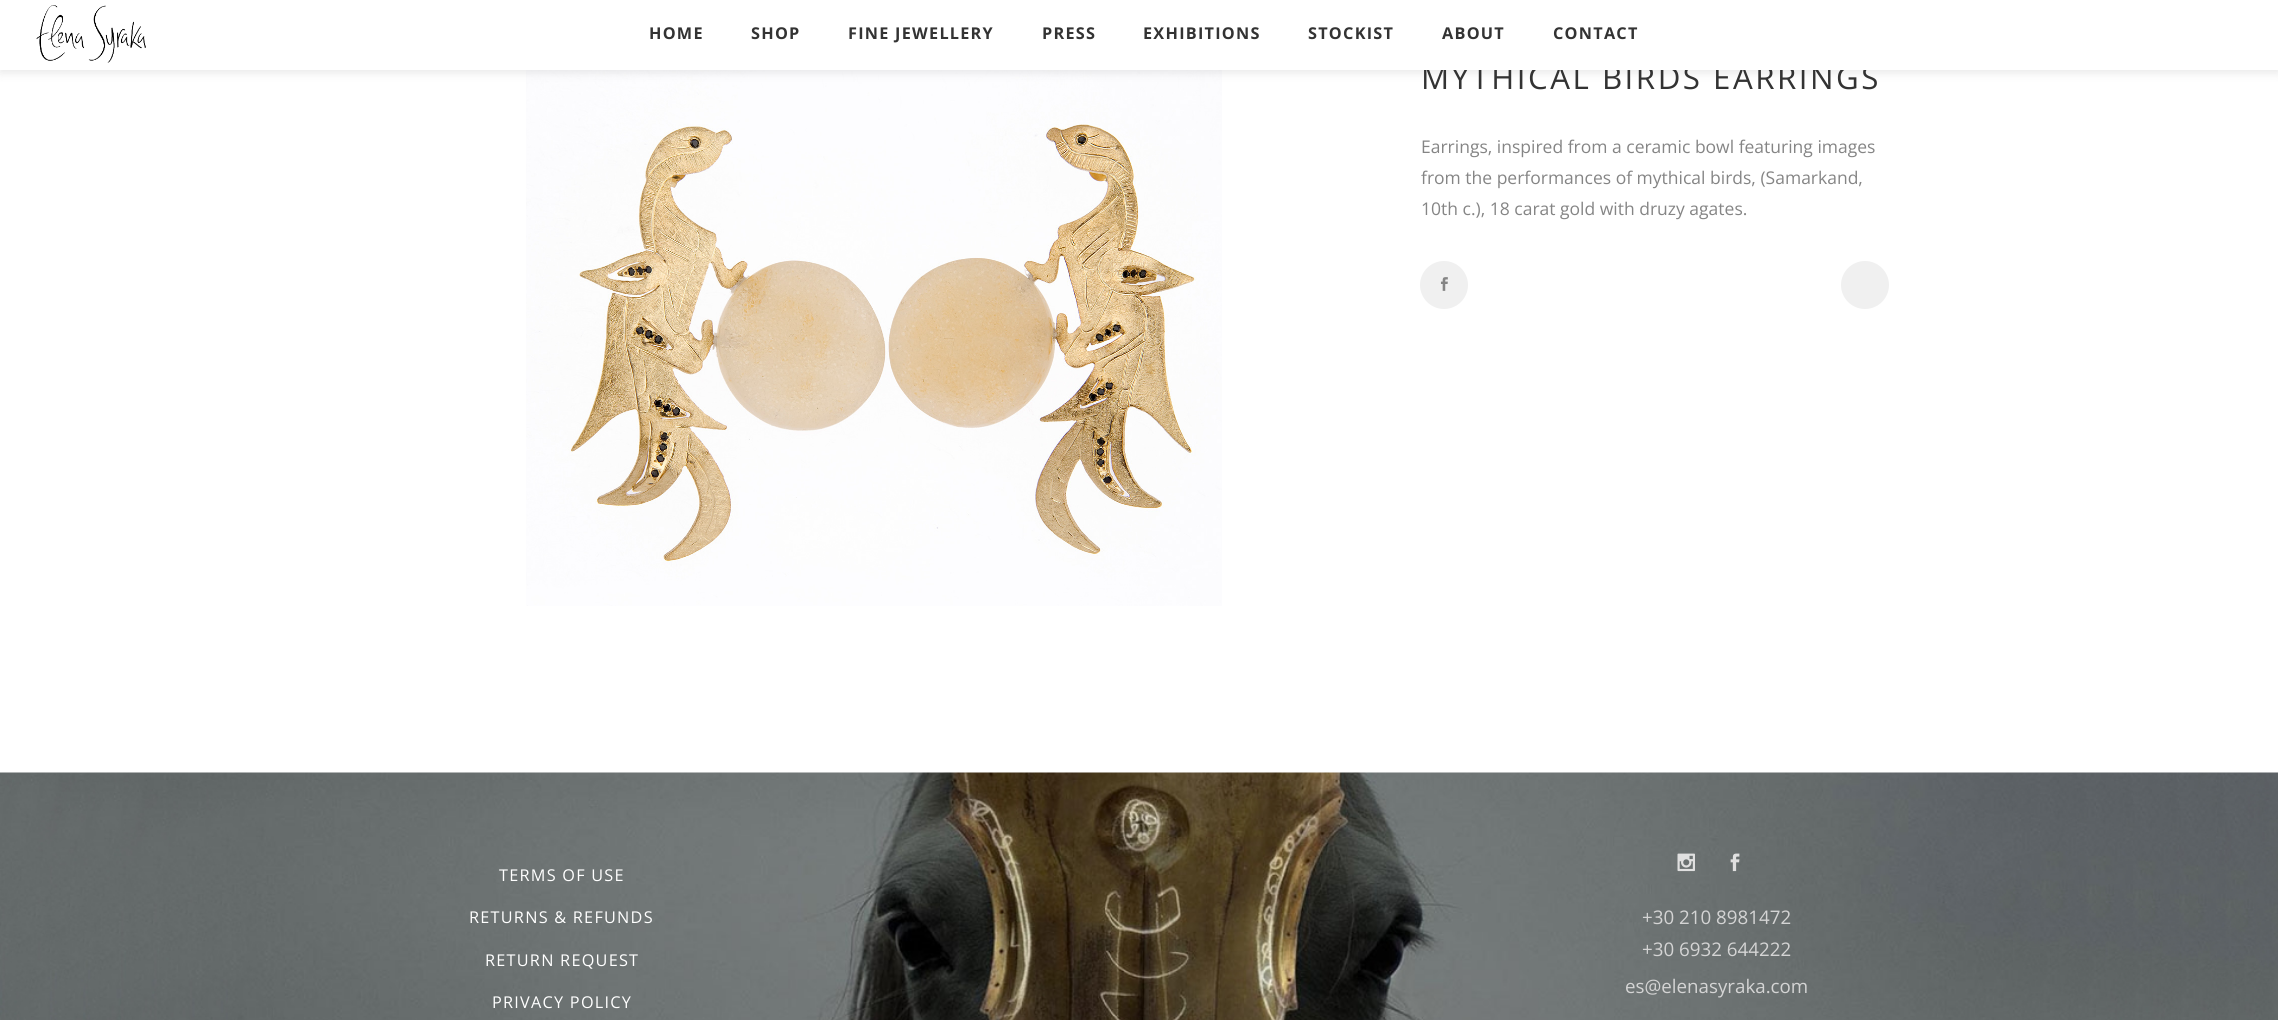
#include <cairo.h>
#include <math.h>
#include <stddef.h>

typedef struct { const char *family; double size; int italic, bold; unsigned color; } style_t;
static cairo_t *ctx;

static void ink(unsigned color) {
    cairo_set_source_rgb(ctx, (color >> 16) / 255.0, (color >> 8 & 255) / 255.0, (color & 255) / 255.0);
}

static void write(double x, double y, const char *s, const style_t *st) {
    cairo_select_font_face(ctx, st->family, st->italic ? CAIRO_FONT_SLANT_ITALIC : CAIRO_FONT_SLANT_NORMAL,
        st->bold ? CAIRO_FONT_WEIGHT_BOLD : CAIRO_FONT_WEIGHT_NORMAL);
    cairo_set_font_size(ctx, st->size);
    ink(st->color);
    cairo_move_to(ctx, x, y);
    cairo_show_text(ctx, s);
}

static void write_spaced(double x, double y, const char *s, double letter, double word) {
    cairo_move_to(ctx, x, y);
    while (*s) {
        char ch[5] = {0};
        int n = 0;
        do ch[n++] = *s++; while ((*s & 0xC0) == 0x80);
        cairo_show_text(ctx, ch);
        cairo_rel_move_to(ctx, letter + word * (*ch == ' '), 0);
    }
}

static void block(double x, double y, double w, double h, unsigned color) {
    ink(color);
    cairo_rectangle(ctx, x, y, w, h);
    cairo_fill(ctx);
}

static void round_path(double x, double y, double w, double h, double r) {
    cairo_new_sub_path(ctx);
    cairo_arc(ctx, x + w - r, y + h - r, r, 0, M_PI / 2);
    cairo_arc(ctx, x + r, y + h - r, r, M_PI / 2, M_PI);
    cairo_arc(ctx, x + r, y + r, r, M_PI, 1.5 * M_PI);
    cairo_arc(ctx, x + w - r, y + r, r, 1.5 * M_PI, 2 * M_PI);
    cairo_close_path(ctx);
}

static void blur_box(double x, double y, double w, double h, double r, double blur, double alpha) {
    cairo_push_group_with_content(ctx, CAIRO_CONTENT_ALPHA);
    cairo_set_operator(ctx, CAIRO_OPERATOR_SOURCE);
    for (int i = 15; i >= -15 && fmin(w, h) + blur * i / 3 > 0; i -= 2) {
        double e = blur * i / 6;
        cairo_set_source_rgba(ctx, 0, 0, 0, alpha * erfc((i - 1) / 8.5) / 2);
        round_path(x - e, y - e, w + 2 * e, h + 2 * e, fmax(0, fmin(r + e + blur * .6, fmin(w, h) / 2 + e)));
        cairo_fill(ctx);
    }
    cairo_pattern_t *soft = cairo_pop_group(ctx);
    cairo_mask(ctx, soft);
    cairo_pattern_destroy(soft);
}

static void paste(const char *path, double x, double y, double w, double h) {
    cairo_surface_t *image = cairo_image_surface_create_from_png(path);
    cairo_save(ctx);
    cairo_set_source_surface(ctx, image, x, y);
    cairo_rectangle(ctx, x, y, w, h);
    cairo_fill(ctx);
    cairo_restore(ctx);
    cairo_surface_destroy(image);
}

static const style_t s1 = {"Open Sans", 17.5, 0, 0, 0x858585};
static const style_t s2 = {"Open Sans", 18.75, 0, 0, 0xd4d4d4};

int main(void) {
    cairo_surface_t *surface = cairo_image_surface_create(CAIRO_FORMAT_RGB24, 2278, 1020);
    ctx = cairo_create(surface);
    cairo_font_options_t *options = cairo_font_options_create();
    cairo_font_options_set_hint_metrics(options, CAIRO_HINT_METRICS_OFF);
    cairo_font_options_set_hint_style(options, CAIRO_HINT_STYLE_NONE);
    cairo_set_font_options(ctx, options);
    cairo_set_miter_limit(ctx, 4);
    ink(0xffffff);
    cairo_paint(ctx);
    paste("pic2.png", 526, 70, 696, 536);
    ink(0x000000);
    blur_box(0, 0, 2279, 73, 0, 5, 0.09);
    cairo_select_font_face(ctx, "Open Sans", CAIRO_FONT_SLANT_NORMAL, CAIRO_FONT_WEIGHT_NORMAL);
    cairo_set_font_size(ctx, 31.25);
    ink(0x333333);
    write_spaced(1421, 89, "MYTHICAL BIRDS EARRINGS", 2.5, 0);
    block(0, 0, 2278, 70, 0xffffff);
    paste("pic1.png", 36, 5, 110, 58);
    cairo_select_font_face(ctx, "Open Sans", CAIRO_FONT_SLANT_NORMAL, CAIRO_FONT_WEIGHT_BOLD);
    cairo_set_font_size(ctx, 16.25);
    ink(0x333333);
    write_spaced(649, 39, "HOME", 1.25, 0);
    write_spaced(751, 39, "SHOP", 1.25, 0);
    write_spaced(848, 39, "FINE JEWELLERY", 1.25, 0);
    write_spaced(1042, 39, "PRESS", 1.25, 0);
    write_spaced(1143, 39, "EXHIBITIONS", 1.25, 0);
    write_spaced(1308, 39, "STOCKIST", 1.25, 0);
    write_spaced(1442, 39, "ABOUT", 1.25, 0);
    write_spaced(1553, 39, "CONTACT", 1.25, 0);
    write(1421, 153, "Earrings, inspired from a ceramic bowl featuring images", &s1);
    write(1421, 184, "from the performances of mythical birds, (Samarkand,", &s1);
    write(1421, 215, "10th c.), 18 carat gold with druzy agates.", &s1);
    ink(0xf0f0f0);
    cairo_new_path(ctx);
    cairo_arc(ctx, 1444, 285, 24, 0, 2 * M_PI);
    cairo_fill(ctx);
    paste("pic3.png", 1440, 277, 8, 14);
    cairo_arc(ctx, 1865, 285, 24, 0, 2 * M_PI);
    cairo_fill(ctx);
    paste("pic4.png", 0, 772, 2278, 248);
    cairo_set_font_size(ctx, 16.25);
    ink(0xffffff);
    write_spaced(499, 881, "TERMS OF USE", 1.25, 0);
    write_spaced(469, 923, "RETURNS & REFUNDS", 1.25, 0);
    write_spaced(485, 966, "RETURN REQUEST", 1.25, 0);
    write_spaced(492, 1008, "PRIVACY POLICY", 1.25, 0);
    paste("pic5.png", 1677, 853, 18, 19);
    paste("pic6.png", 1730, 853, 10, 19);
    write(1642, 924, "+30 210 8981472", &s2);
    write(1642, 956, "+30 6932 644222", &s2);
    write(1625, 993, "es@elenasyraka.com", &s2);
    cairo_surface_write_to_png(surface, "screenshot.png");
    cairo_font_options_destroy(options);
    cairo_destroy(ctx);
    cairo_surface_destroy(surface);
    return 0;
}
